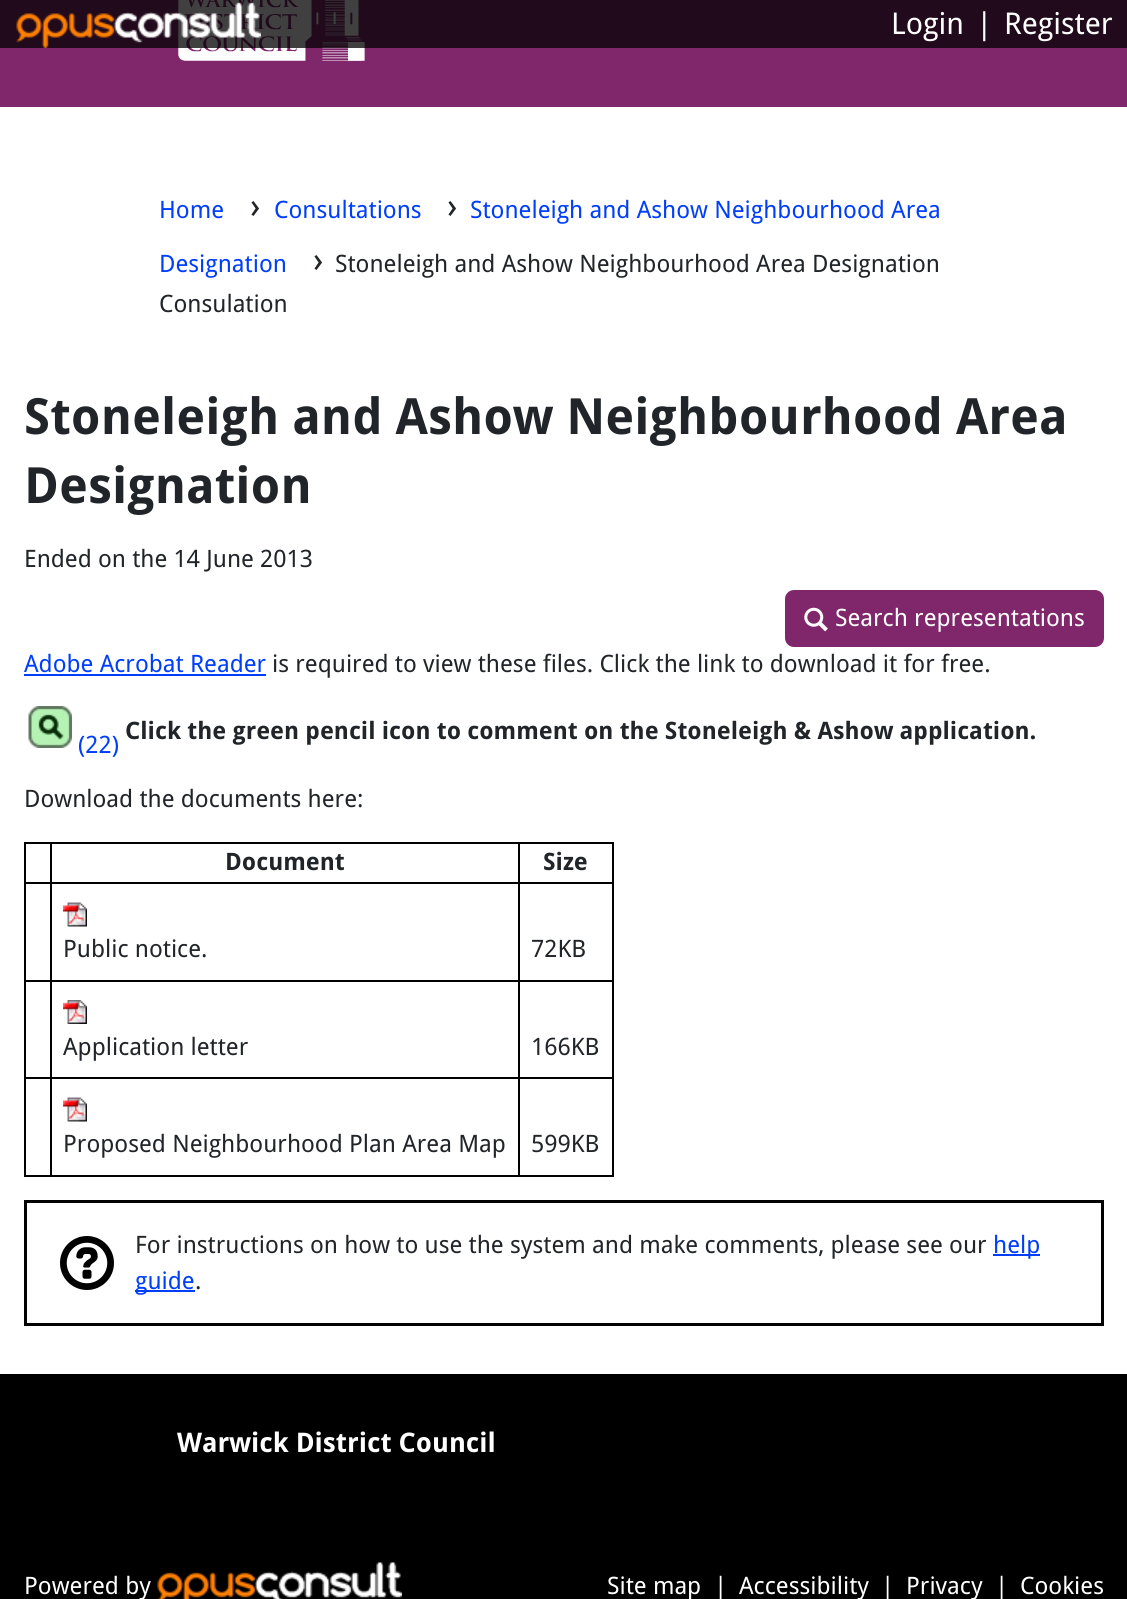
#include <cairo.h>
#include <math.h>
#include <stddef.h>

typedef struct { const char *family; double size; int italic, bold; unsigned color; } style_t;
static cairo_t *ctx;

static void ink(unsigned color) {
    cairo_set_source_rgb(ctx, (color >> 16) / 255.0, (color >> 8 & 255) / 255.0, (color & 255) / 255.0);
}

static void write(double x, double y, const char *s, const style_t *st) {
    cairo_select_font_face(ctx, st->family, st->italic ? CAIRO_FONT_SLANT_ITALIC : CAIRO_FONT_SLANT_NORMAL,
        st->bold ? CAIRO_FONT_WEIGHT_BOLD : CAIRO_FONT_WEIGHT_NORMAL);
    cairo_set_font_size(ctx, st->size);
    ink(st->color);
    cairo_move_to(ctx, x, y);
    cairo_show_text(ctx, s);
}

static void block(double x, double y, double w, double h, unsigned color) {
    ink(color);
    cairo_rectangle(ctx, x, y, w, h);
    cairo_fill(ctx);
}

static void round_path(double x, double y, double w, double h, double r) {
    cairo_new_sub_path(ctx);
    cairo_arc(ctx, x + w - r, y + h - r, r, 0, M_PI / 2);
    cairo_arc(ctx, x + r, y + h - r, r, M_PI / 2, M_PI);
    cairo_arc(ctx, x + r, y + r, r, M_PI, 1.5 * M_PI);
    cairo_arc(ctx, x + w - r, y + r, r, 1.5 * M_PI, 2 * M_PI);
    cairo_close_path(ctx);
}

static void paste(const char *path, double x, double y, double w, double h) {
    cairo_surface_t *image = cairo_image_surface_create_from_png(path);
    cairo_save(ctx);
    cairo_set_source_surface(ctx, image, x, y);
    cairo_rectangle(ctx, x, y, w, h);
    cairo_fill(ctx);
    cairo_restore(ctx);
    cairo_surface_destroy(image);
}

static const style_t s1 = {"Droid Sans", 30, 0, 0, 0xffffff};
static const style_t s2 = {"Droid Sans", 36, 0, 0, 0x212529};
static const style_t s3 = {"Droid Sans", 24, 0, 0, 0x003efa};
static const style_t s4 = {"Droid Sans", 24, 0, 0, 0x212529};
static const style_t s5 = {"Droid Sans", 49.9, 0, 1, 0x212529};
static const style_t s6 = {"Droid Sans", 24, 0, 0, 0xffffff};
static const style_t s7 = {"Droid Sans", 24, 0, 1, 0x212529};
static const style_t s8 = {"Droid Sans", 27, 0, 1, 0xffffff};

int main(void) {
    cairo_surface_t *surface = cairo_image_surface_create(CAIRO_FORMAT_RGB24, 1127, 1599);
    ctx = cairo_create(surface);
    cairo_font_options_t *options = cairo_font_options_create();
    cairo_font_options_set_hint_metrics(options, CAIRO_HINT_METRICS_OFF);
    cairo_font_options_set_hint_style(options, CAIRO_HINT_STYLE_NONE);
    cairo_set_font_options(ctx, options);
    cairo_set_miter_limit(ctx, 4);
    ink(0xffffff);
    cairo_paint(ctx);
    block(0, 0, 1127, 107, 0x80276c);
    paste("pic2.png", 178, 0, 187, 61);
    cairo_set_source_rgba(ctx, 0, 0, 0, 0.75);
    cairo_rectangle(ctx, 0, 0, 1127, 48);
    cairo_fill(ctx);
    paste("pic1.png", 15, 2, 246, 46);
    write(891, 34, "Login", &s1);
    write(976, 34, "|", &s1);
    write(1004, 34, "Register", &s1);
    write(447, 218, "›", &s2);
    write(470, 218, "Stoneleigh and Ashow Neighbourhood Area", &s3);
    write(159, 272, "Designation", &s3);
    write(159, 218, "Home", &s3);
    write(250, 218, "›", &s2);
    write(274, 218, "Consultations", &s3);
    write(313, 272, "›", &s2);
    write(335, 272, "Stoneleigh and Ashow Neighbourhood Area Designation", &s4);
    write(159, 312, "Consulation", &s4);
    write(24, 434, "Stoneleigh and Ashow Neighbourhood Area", &s5);
    write(24, 503, "Designation", &s5);
    write(24, 567, "Ended on the 14 June 2013", &s4);
    ink(0x80276c);
    round_path(786, 591, 317, 55, 8);
    cairo_fill_preserve(ctx);
    cairo_stroke(ctx);
    paste("pic3.png", 804, 607, 24, 25);
    write(835, 626, "Search representations", &s6);
    write(24, 672, "Adobe Acrobat Reader", &s3);
    block(24, 674, 242, 2, 0x003efa);
    write(272, 672, "is required to view these files. Click the link to download it for free.", &s4);
    paste("pic4.png", 28, 706, 44, 42);
    write(78, 753, "(22)", &s3);
    write(125, 739, "Click the green pencil icon to comment on the Stoneleigh & Ashow application.", &s7);
    write(24, 807, "Download the documents here:", &s4);
    block(24, 842, 590, 2, 0x000000);
    block(612, 842, 2, 334, 0x000000);
    block(24, 1175, 590, 2, 0x000000);
    block(24, 842, 2, 334, 0x000000);
    block(24, 882, 590, 2, 0x000000);
    write(225, 870, "Document", &s7);
    write(543, 870, "Size", &s7);
    paste("pic5.png", 63, 902, 24, 25);
    write(63, 957, "Public notice.", &s4);
    write(531, 957, "72KB", &s4);
    block(24, 980, 590, 2, 0x000000);
    paste("pic6.png", 63, 1000, 24, 24);
    write(63, 1055, "Application letter", &s4);
    write(531, 1055, "166KB", &s4);
    block(24, 1077, 590, 2, 0x000000);
    block(50, 842, 2, 334, 0x000000);
    paste("pic5.png", 63, 1097, 24, 25);
    write(63, 1152, "Proposed Neighbourhood Plan Area Map", &s4);
    block(518, 842, 2, 334, 0x000000);
    write(531, 1152, "599KB", &s4);
    cairo_rectangle(ctx, 25.5, 1201.5, 1077, 123);
    ink(0x000000);
    cairo_set_line_width(ctx, 3);
    cairo_stroke(ctx);
    paste("pic7.png", 60, 1236, 54, 54);
    write(135, 1253, "For instructions on how to use the system and make comments, please see our", &s4);
    block(993, 1254, 47, 2, 0x003efa);
    write(993, 1253, "help", &s3);
    block(135, 1290, 60, 2, 0x003efa);
    write(135, 1289, "guide", &s3);
    write(195, 1289, ".", &s4);
    block(0, 1374, 1127, 225, 0x000000);
    write(177, 1452, "Warwick District Council", &s8);
    write(24, 1594, "Powered by", &s6);
    paste("pic8.png", 157, 1562, 245, 37);
    write(607, 1594, "Site map", &s6);
    write(714, 1594, "|", &s6);
    write(739, 1594, "Accessibility", &s6);
    write(881, 1594, "|", &s6);
    write(906, 1594, "Privacy", &s6);
    write(995, 1594, "|", &s6);
    write(1020, 1594, "Cookies", &s6);
    cairo_surface_write_to_png(surface, "screenshot.png");
    cairo_font_options_destroy(options);
    cairo_destroy(ctx);
    cairo_surface_destroy(surface);
    return 0;
}
